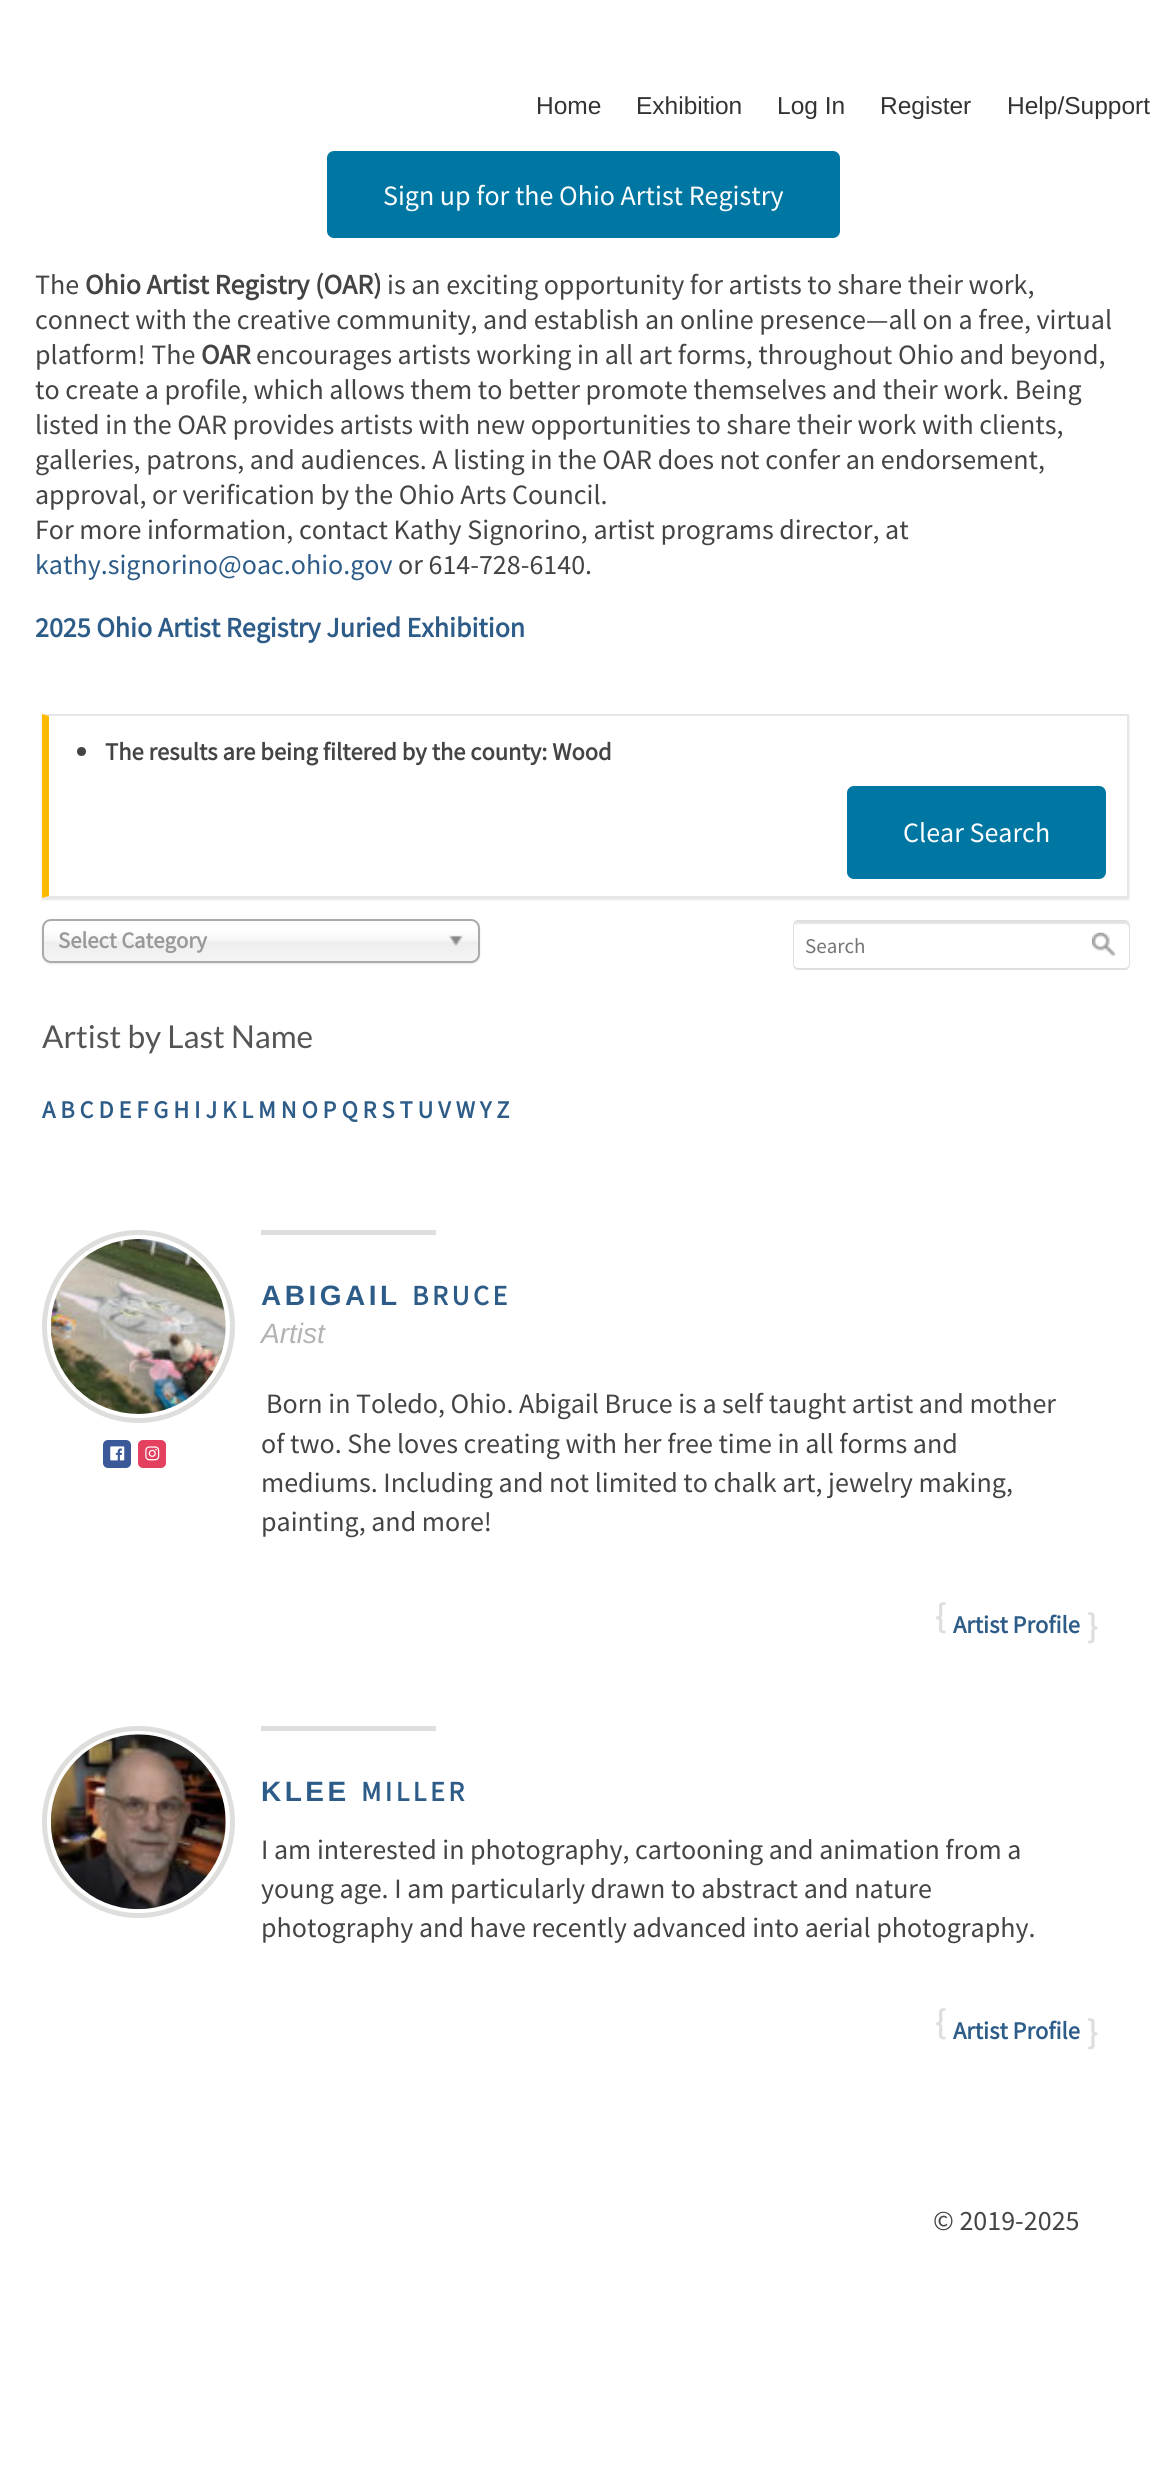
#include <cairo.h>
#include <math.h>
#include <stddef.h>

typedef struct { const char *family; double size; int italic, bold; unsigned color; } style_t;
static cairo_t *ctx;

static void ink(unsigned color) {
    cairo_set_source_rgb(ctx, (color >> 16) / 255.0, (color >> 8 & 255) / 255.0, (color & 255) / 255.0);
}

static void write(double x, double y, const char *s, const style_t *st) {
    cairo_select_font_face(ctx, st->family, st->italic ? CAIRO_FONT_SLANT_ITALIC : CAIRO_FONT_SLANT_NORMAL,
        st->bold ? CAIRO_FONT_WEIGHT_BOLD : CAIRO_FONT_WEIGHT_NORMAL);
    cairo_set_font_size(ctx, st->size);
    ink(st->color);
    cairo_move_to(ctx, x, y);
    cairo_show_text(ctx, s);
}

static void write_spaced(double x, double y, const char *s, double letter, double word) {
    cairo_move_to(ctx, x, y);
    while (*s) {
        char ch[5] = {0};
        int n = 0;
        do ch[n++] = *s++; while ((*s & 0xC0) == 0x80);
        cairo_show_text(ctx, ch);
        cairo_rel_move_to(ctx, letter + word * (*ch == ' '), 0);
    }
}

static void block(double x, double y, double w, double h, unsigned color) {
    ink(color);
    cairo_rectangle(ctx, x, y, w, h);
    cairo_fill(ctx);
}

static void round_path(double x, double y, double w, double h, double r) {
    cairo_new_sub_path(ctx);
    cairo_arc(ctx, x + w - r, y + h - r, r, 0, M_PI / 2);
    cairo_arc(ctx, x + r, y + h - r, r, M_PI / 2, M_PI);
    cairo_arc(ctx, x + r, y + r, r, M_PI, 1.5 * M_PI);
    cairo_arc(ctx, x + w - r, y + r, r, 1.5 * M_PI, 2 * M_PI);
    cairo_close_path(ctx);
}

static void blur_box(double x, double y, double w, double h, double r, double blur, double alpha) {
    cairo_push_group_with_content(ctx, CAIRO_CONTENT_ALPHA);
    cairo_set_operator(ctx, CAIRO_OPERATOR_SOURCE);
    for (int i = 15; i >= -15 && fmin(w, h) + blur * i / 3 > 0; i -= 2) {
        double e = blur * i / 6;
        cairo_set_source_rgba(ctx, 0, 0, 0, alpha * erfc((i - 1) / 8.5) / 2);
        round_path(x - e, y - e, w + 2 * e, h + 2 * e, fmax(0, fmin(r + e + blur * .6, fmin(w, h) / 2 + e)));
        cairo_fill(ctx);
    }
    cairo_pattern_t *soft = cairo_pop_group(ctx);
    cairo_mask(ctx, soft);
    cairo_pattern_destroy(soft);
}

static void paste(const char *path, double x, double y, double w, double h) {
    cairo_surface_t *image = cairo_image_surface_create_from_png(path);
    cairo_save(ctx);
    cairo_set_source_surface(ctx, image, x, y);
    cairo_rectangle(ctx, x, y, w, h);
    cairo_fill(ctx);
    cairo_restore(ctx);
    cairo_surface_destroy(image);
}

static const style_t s1 = {"Liberation Sans", 24.5, 0, 0, 0x333333};
static const style_t s2 = {"Source Sans Pro", 28, 0, 0, 0xffffff};
static const style_t s3 = {"Source Sans Pro", 28, 0, 0, 0x444444};
static const style_t s4 = {"Source Sans Pro", 28, 0, 1, 0x444444};
static const style_t s5 = {"Source Sans Pro", 28, 0, 0, 0x2d5c88};
static const style_t s6 = {"Source Sans Pro", 28, 0, 1, 0x2d5c88};
static const style_t s7 = {"Source Sans Pro", 24.5, 0, 1, 0x444444};
static const style_t s8 = {"Source Sans Pro", 22.75, 0, 1, 0x999999};
static const style_t s9 = {"Source Sans Pro", 21, 0, 0, 0x757575};
static const style_t s10 = {"Lato", 31.5, 0, 0, 0x555555};
static const style_t s11 = {"Source Sans Pro", 24.5, 0, 1, 0x2d5c88};
static const style_t s12 = {"Liberation Sans", 28, 1, 0, 0xb3b3b1};
static const style_t s13 = {"Source Sans Pro", 35, 0, 1, 0xdededc};

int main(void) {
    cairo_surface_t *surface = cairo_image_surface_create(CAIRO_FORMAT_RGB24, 1166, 2482);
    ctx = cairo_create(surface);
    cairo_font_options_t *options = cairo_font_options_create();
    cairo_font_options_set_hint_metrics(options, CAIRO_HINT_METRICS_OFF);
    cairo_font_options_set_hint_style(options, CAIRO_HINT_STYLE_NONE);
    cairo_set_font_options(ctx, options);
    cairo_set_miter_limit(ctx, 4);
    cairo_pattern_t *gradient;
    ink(0xffffff);
    cairo_paint(ctx);
    write(536, 114, "Home", &s1);
    write(636, 114, "Exhibition", &s1);
    write(777, 114, "Log In", &s1);
    write(880, 114, "Register", &s1);
    write(1007, 114, "Help/Support", &s1);
    ink(0x0076a3);
    round_path(327, 151, 513, 87, 7);
    cairo_fill(ctx);
    write(383, 205, "Sign up for the Ohio Artist Registry", &s2);
    write(35, 294, "The", &s3);
    write(85, 294, "Ohio Artist Registry (OAR)", &s4);
    write(387, 294, "is an exciting opportunity for artists to share their work,", &s3);
    write(35, 329, "connect with the creative community, and establish an online presence—all on a free, virtual", &s3);
    write(35, 364, "platform! The", &s3);
    write(201, 364, "OAR", &s4);
    write(256, 364, "encourages artists working in all art forms, throughout Ohio and beyond,", &s3);
    write(35, 399, "to create a profile, which allows them to better promote themselves and their work. Being", &s3);
    write(35, 434, "listed in the OAR provides artists with new opportunities to share their work with clients,", &s3);
    write(35, 469, "galleries, patrons, and audiences. A listing in the OAR does not confer an endorsement,", &s3);
    write(35, 504, "approval, or verification by the Ohio Arts Council.", &s3);
    write(35, 539, "For more information, contact Kathy Signorino, artist programs director, at", &s3);
    write(35, 574, "kathy.signorino@oac.ohio.gov", &s5);
    write(398, 574, "or 614-728-6140.", &s3);
    write(35, 637, "2025 Ohio Artist Registry Juried Exhibition", &s6);
    cairo_save(ctx);
    cairo_set_fill_rule(ctx, CAIRO_FILL_RULE_EVEN_ODD);
    cairo_new_path(ctx);
    cairo_move_to(ctx, 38, 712);
    cairo_line_to(ctx, 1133, 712);
    cairo_line_to(ctx, 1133, 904);
    cairo_line_to(ctx, 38, 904);
    cairo_close_path(ctx);
    cairo_move_to(ctx, 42, 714);
    cairo_line_to(ctx, 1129, 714);
    cairo_line_to(ctx, 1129, 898);
    cairo_line_to(ctx, 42, 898);
    cairo_close_path(ctx);
    cairo_clip(ctx);
    ink(0x000000);
    blur_box(42, 716, 1087, 184, 0, 1, 0.1);
    cairo_restore(ctx);
    ink(0xe6e6e6);
    cairo_new_path(ctx);
    cairo_move_to(ctx, 42, 714);
    cairo_line_to(ctx, 1129, 714);
    cairo_line_to(ctx, 1127, 716);
    cairo_line_to(ctx, 49, 716);
    cairo_close_path(ctx);
    cairo_fill(ctx);
    cairo_set_source_rgba(ctx, 0, 0, 0, 0.1);
    cairo_new_path(ctx);
    cairo_move_to(ctx, 1129, 714);
    cairo_line_to(ctx, 1129, 898);
    cairo_line_to(ctx, 1127, 896);
    cairo_line_to(ctx, 1127, 716);
    cairo_close_path(ctx);
    cairo_fill(ctx);
    cairo_new_path(ctx);
    cairo_move_to(ctx, 1129, 898);
    cairo_line_to(ctx, 42, 898);
    cairo_line_to(ctx, 49, 896);
    cairo_line_to(ctx, 1127, 896);
    cairo_close_path(ctx);
    cairo_fill(ctx);
    ink(0xffba00);
    cairo_new_path(ctx);
    cairo_move_to(ctx, 42, 898);
    cairo_line_to(ctx, 42, 714);
    cairo_line_to(ctx, 49, 716);
    cairo_line_to(ctx, 49, 896);
    cairo_close_path(ctx);
    cairo_fill(ctx);
    ink(0x444444);
    cairo_arc(ctx, 81.5, 751.5, 4.5, 0, 2 * M_PI);
    cairo_fill(ctx);
    write(105, 760, "The results are being filtered by the county: Wood", &s7);
    ink(0x0076a3);
    round_path(847, 786, 259, 93, 7);
    cairo_fill(ctx);
    write(903, 842, "Clear Search", &s2);
    ink(0x000000);
    blur_box(42, 921, 438, 43, 9, 1, 0.1);
    gradient = cairo_pattern_create_linear(261, 921, 261, 961);
    cairo_pattern_add_color_stop_rgba(gradient, 0.2, 1, 1, 1, 1);
    cairo_pattern_add_color_stop_rgba(gradient, 0.5, 0.965, 0.965, 0.965, 1);
    cairo_pattern_add_color_stop_rgba(gradient, 0.52, 0.933, 0.933, 0.933, 1);
    cairo_pattern_add_color_stop_rgba(gradient, 1, 0.957, 0.957, 0.957, 1);
    cairo_set_source(ctx, gradient);
    cairo_pattern_destroy(gradient);
    round_path(44, 921, 434, 40, 7);
    cairo_fill(ctx);
    round_path(43, 920, 436, 42, 8);
    ink(0xaaaaaa);
    cairo_stroke(ctx);
    write(58, 948, "Select Category", &s8);
    paste("pic1.png", 449, 935, 14, 11);
    ink(0xe6e6e6);
    cairo_new_path(ctx);
    cairo_move_to(ctx, 798, 924);
    cairo_line_to(ctx, 1078, 924);
    cairo_line_to(ctx, 1078, 922);
    cairo_line_to(ctx, 799, 922);
    cairo_curve_to(ctx, 797, 922, 795, 924, 795, 925);
    cairo_close_path(ctx);
    cairo_fill(ctx);
    ink(0xdfdfdf);
    cairo_set_fill_rule(ctx, CAIRO_FILL_RULE_EVEN_ODD);
    cairo_new_path(ctx);
    cairo_move_to(ctx, 798, 920);
    cairo_line_to(ctx, 1078, 920);
    cairo_line_to(ctx, 1078, 970);
    cairo_line_to(ctx, 798, 970);
    cairo_curve_to(ctx, 795, 970, 793, 967, 793, 964);
    cairo_line_to(ctx, 793, 926);
    cairo_curve_to(ctx, 793, 923, 795, 920, 798, 920);
    cairo_close_path(ctx);
    cairo_move_to(ctx, 798, 922);
    cairo_line_to(ctx, 1078, 922);
    cairo_line_to(ctx, 1078, 968);
    cairo_line_to(ctx, 798, 968);
    cairo_curve_to(ctx, 796, 968, 794, 966, 794, 964);
    cairo_line_to(ctx, 794, 926);
    cairo_curve_to(ctx, 794, 924, 796, 922, 798, 922);
    cairo_close_path(ctx);
    cairo_fill(ctx);
    write(805, 953, "Search", &s9);
    paste("pic2.png", 1092, 932, 24, 24);
    ink(0xe6e6e6);
    cairo_set_fill_rule(ctx, CAIRO_FILL_RULE_WINDING);
    cairo_new_path(ctx);
    cairo_move_to(ctx, 1078, 924);
    cairo_line_to(ctx, 1125, 924);
    cairo_curve_to(ctx, 1127, 924, 1129, 926, 1129, 928);
    cairo_line_to(ctx, 1129, 926);
    cairo_curve_to(ctx, 1129, 924, 1127, 922, 1125, 922);
    cairo_line_to(ctx, 1078, 922);
    cairo_close_path(ctx);
    cairo_fill(ctx);
    ink(0xdfdfdf);
    cairo_set_fill_rule(ctx, CAIRO_FILL_RULE_EVEN_ODD);
    cairo_new_path(ctx);
    cairo_move_to(ctx, 1078, 920);
    cairo_line_to(ctx, 1125, 920);
    cairo_curve_to(ctx, 1128, 920, 1130, 923, 1130, 926);
    cairo_line_to(ctx, 1130, 964);
    cairo_curve_to(ctx, 1130, 967, 1128, 970, 1125, 970);
    cairo_line_to(ctx, 1078, 970);
    cairo_close_path(ctx);
    cairo_move_to(ctx, 1078, 922);
    cairo_line_to(ctx, 1125, 922);
    cairo_curve_to(ctx, 1127, 922, 1129, 924, 1129, 926);
    cairo_line_to(ctx, 1129, 964);
    cairo_curve_to(ctx, 1129, 966, 1127, 968, 1125, 968);
    cairo_line_to(ctx, 1078, 968);
    cairo_close_path(ctx);
    cairo_fill(ctx);
    write(42, 1048, "Artist by Last Name", &s10);
    write(42, 1118, "A B C D E F G H I J K L M N O P Q R S T U V W Y Z", &s11);
    cairo_new_path(ctx);
    cairo_arc(ctx, 138.5, 1326.5, 94, 0, 2 * M_PI);
    ink(0xdededc);
    cairo_set_line_width(ctx, 5);
    cairo_stroke(ctx);
    paste("pic3.png", 50, 1239, 176, 175);
    block(261, 1230, 175, 5, 0xdededc);
    cairo_select_font_face(ctx, "Liberation Sans", CAIRO_FONT_SLANT_NORMAL, CAIRO_FONT_WEIGHT_BOLD);
    cairo_set_font_size(ctx, 28);
    ink(0x2d5c88);
    write_spaced(261, 1305, "ABIGAIL", 3.5, 0);
    cairo_select_font_face(ctx, "Source Sans Pro", CAIRO_FONT_SLANT_NORMAL, CAIRO_FONT_WEIGHT_BOLD);
    write_spaced(412, 1305, "BRUCE", 3.5, 0);
    write(261, 1343, "Artist", &s12);
    write(266, 1413, "Born in Toledo, Ohio. Abigail Bruce is a self taught artist and mother", &s3);
    write(261, 1453, "of two. She loves creating with her free time in all forms and", &s3);
    write(261, 1492, "mediums. Including and not limited to chalk art, jewelry making,", &s3);
    write(261, 1531, "painting, and more!", &s3);
    write(935, 1628, "{", &s13);
    write(953, 1633, "Artist Profile", &s11);
    write(1087, 1638, "}", &s13);
    ink(0x3b5998);
    round_path(103, 1440, 28, 28, 5);
    cairo_fill(ctx);
    paste("pic4.png", 110, 1446, 15, 15);
    ink(0xe4405f);
    round_path(138, 1440, 28, 28, 5);
    cairo_fill(ctx);
    paste("pic5.png", 145, 1446, 15, 15);
    round_path(44.5, 1728.5, 188, 187, 93.5);
    ink(0xdededc);
    cairo_stroke(ctx);
    paste("pic6.png", 50, 1734, 176, 176);
    block(261, 1726, 175, 5, 0xdededc);
    cairo_select_font_face(ctx, "Liberation Sans", CAIRO_FONT_SLANT_NORMAL, CAIRO_FONT_WEIGHT_BOLD);
    cairo_set_font_size(ctx, 28);
    ink(0x2d5c88);
    write_spaced(261, 1801, "KLEE", 3.5, 0);
    cairo_select_font_face(ctx, "Source Sans Pro", CAIRO_FONT_SLANT_NORMAL, CAIRO_FONT_WEIGHT_BOLD);
    write_spaced(361, 1801, "MILLER", 3.5, 0);
    write(261, 1859, "I am interested in photography, cartooning and animation from a", &s3);
    write(261, 1898, "young age. I am particularly drawn to abstract and nature", &s3);
    write(261, 1937, "photography and have recently advanced into aerial photography.", &s3);
    write(935, 2034, "{", &s13);
    write(953, 2039, "Artist Profile", &s11);
    write(1087, 2044, "}", &s13);
    write(933, 2230, "© 2019-2025", &s3);
    cairo_surface_write_to_png(surface, "screenshot.png");
    cairo_font_options_destroy(options);
    cairo_destroy(ctx);
    cairo_surface_destroy(surface);
    return 0;
}
